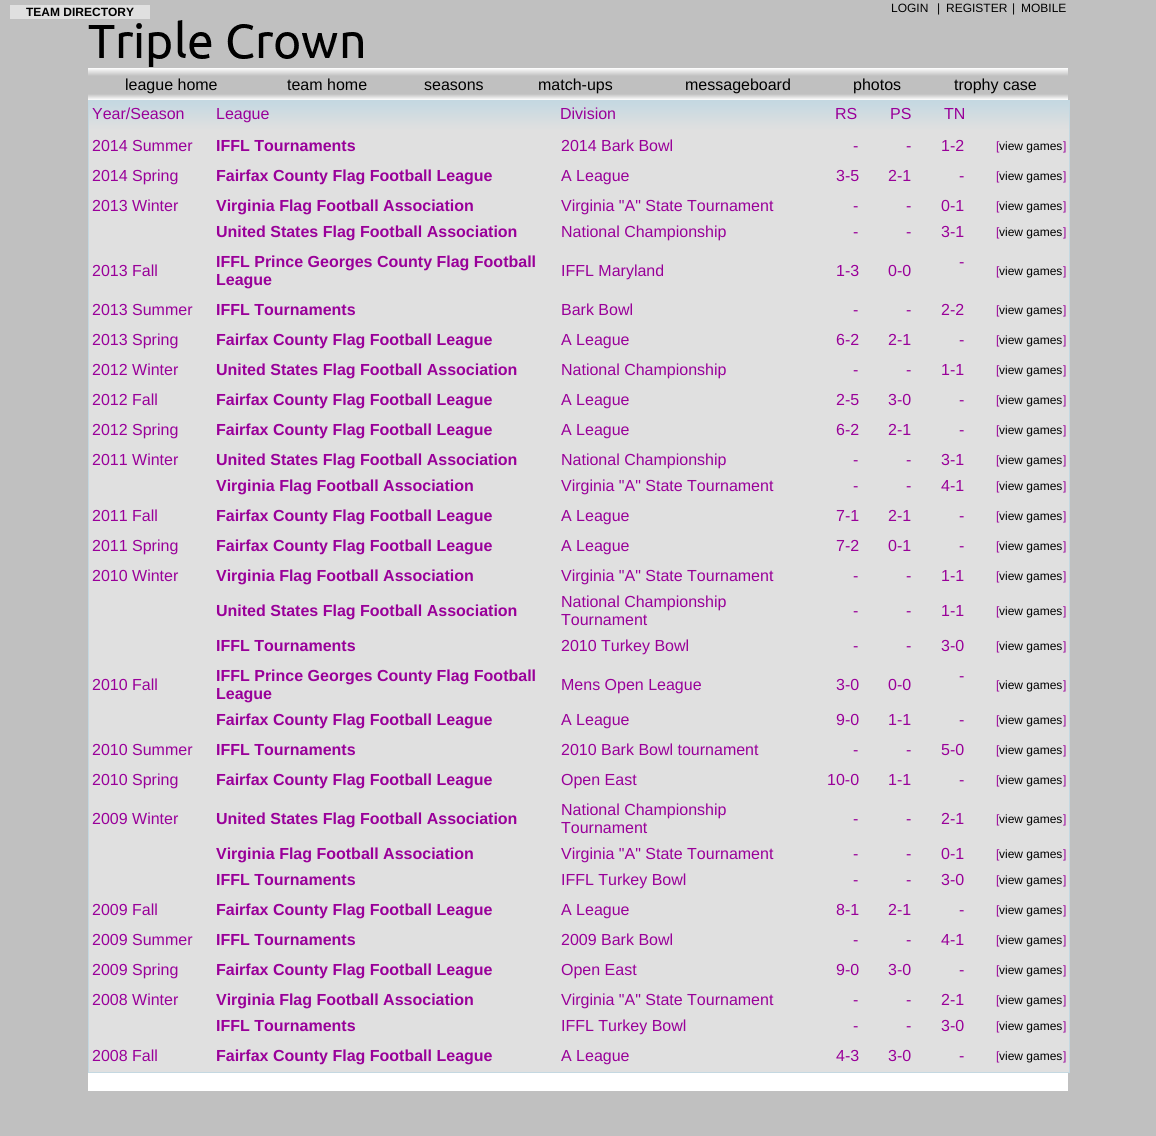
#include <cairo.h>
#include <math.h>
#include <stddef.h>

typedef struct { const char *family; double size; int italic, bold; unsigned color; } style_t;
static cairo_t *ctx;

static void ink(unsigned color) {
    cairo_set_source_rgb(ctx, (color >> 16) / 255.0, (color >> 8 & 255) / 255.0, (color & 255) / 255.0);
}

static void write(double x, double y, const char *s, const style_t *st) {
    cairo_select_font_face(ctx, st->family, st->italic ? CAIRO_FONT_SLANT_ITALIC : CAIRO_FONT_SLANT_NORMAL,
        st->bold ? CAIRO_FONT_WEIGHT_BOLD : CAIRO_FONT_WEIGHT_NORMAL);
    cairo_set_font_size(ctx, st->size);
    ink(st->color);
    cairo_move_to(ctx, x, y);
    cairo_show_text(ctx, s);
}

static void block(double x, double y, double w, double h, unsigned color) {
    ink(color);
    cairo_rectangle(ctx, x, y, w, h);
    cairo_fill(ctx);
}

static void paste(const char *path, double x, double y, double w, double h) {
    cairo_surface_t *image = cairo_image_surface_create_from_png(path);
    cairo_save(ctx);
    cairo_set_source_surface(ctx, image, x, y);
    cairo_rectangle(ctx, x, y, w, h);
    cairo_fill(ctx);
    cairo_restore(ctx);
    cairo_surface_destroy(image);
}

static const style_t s1 = {"Liberation Sans", 12, 0, 1, 0x000000};
static const style_t s2 = {"Liberation Sans", 12, 0, 0, 0x000000};
static const style_t s3 = {"Liberation Sans", 16, 0, 0, 0x000000};
static const style_t s4 = {"Liberation Sans", 16, 0, 0, 0x990099};
static const style_t s5 = {"Liberation Sans", 16, 0, 1, 0x990099};
static const style_t s6 = {"Liberation Sans", 12, 0, 0, 0x990099};

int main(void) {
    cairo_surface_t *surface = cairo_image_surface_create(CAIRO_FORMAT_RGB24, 1156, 1136);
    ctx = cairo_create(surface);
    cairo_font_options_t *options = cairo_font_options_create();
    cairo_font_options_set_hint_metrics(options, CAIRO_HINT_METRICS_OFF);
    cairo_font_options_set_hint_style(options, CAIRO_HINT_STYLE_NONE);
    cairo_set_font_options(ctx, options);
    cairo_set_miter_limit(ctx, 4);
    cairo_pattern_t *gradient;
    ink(0xc0c0c0);
    cairo_paint(ctx);
    block(10, 5, 140, 14, 0xe0e0e0);
    write(26, 16, "TEAM DIRECTORY", &s1);
    write(891, 12, "LOGIN", &s2);
    write(937, 12, "|", &s2);
    write(946, 12, "REGISTER", &s2);
    write(1012, 12, "|", &s2);
    write(1021, 12, "MOBILE", &s2);
    paste("pic1.png", 88, 20, 275, 47);
    block(88, 1073, 980, 18, 0xffffff);
    gradient = cairo_pattern_create_linear(578, 68, 578, 76);
    cairo_pattern_add_color_stop_rgba(gradient, 0, 1, 1, 1, 1);
    cairo_pattern_add_color_stop_rgba(gradient, 1, 0.753, 0.753, 0.753, 1);
    cairo_set_source(ctx, gradient);
    cairo_pattern_destroy(gradient);
    cairo_rectangle(ctx, 88, 68, 980, 8);
    cairo_fill(ctx);
    write(125, 90, "league home", &s3);
    write(287, 90, "team home", &s3);
    write(424, 90, "seasons", &s3);
    write(538, 90, "match-ups", &s3);
    write(685, 90, "messageboard", &s3);
    write(853, 90, "photos", &s3);
    write(954, 90, "trophy case", &s3);
    gradient = cairo_pattern_create_linear(578, 94, 578, 100);
    cairo_pattern_add_color_stop_rgba(gradient, 0, 0.753, 0.753, 0.753, 1);
    cairo_pattern_add_color_stop_rgba(gradient, 1, 1, 1, 1, 1);
    cairo_set_source(ctx, gradient);
    cairo_pattern_destroy(gradient);
    cairo_rectangle(ctx, 88, 94, 980, 6);
    cairo_fill(ctx);
    block(89, 130, 980, 942, 0xe0e0e0);
    cairo_rectangle(ctx, 88.5, 100.5, 981, 972);
    ink(0xc4d8e1);
    cairo_set_line_width(ctx, 1);
    cairo_stroke(ctx);
    gradient = cairo_pattern_create_linear(579, 101, 579, 130);
    cairo_pattern_add_color_stop_rgba(gradient, 0, 0.769, 0.847, 0.882, 1);
    cairo_pattern_add_color_stop_rgba(gradient, 1, 0.878, 0.878, 0.878, 1);
    cairo_set_source(ctx, gradient);
    cairo_pattern_destroy(gradient);
    cairo_rectangle(ctx, 89, 101, 980, 29);
    cairo_fill(ctx);
    write(92, 119, "Year/Season", &s4);
    write(216, 119, "League", &s4);
    write(560, 119, "Division", &s4);
    write(835, 119, "RS", &s4);
    write(890, 119, "PS", &s4);
    write(944, 119, "TN", &s4);
    write(92, 151, "2014 Summer", &s4);
    write(216, 151, "IFFL Tournaments", &s5);
    write(561, 151, "2014 Bark Bowl", &s4);
    write(853, 151, "-", &s4);
    write(906, 151, "-", &s4);
    write(941, 151, "1-2", &s4);
    write(996, 150, "[", &s6);
    write(999, 150, "view games", &s2);
    write(1063, 150, "]", &s6);
    write(92, 181, "2014 Spring", &s4);
    write(216, 181, "Fairfax County Flag Football League", &s5);
    write(561, 181, "A League", &s4);
    write(836, 181, "3-5", &s4);
    write(888, 181, "2-1", &s4);
    write(959, 181, "-", &s4);
    write(996, 180, "[", &s6);
    write(999, 180, "view games", &s2);
    write(1063, 180, "]", &s6);
    write(92, 211, "2013 Winter", &s4);
    write(216, 211, "Virginia Flag Football Association", &s5);
    write(561, 211, "Virginia \"A\" State Tournament", &s4);
    write(853, 211, "-", &s4);
    write(906, 211, "-", &s4);
    write(941, 211, "0-1", &s4);
    write(996, 210, "[", &s6);
    write(999, 210, "view games", &s2);
    write(1063, 210, "]", &s6);
    write(216, 237, "United States Flag Football Association", &s5);
    write(561, 237, "National Championship", &s4);
    write(853, 237, "-", &s4);
    write(906, 237, "-", &s4);
    write(941, 237, "3-1", &s4);
    write(996, 236, "[", &s6);
    write(999, 236, "view games", &s2);
    write(1063, 236, "]", &s6);
    write(216, 267, "IFFL Prince Georges County Flag Football", &s5);
    write(216, 285, "League", &s5);
    write(959, 267, "-", &s4);
    write(92, 276, "2013 Fall", &s4);
    write(561, 276, "IFFL Maryland", &s4);
    write(836, 276, "1-3", &s4);
    write(888, 276, "0-0", &s4);
    write(996, 275, "[", &s6);
    write(999, 275, "view games", &s2);
    write(1063, 275, "]", &s6);
    write(92, 315, "2013 Summer", &s4);
    write(216, 315, "IFFL Tournaments", &s5);
    write(561, 315, "Bark Bowl", &s4);
    write(853, 315, "-", &s4);
    write(906, 315, "-", &s4);
    write(941, 315, "2-2", &s4);
    write(996, 314, "[", &s6);
    write(999, 314, "view games", &s2);
    write(1063, 314, "]", &s6);
    write(92, 345, "2013 Spring", &s4);
    write(216, 345, "Fairfax County Flag Football League", &s5);
    write(561, 345, "A League", &s4);
    write(836, 345, "6-2", &s4);
    write(888, 345, "2-1", &s4);
    write(959, 345, "-", &s4);
    write(996, 344, "[", &s6);
    write(999, 344, "view games", &s2);
    write(1063, 344, "]", &s6);
    write(92, 375, "2012 Winter", &s4);
    write(216, 375, "United States Flag Football Association", &s5);
    write(561, 375, "National Championship", &s4);
    write(853, 375, "-", &s4);
    write(906, 375, "-", &s4);
    write(941, 375, "1-1", &s4);
    write(996, 374, "[", &s6);
    write(999, 374, "view games", &s2);
    write(1063, 374, "]", &s6);
    write(92, 405, "2012 Fall", &s4);
    write(216, 405, "Fairfax County Flag Football League", &s5);
    write(561, 405, "A League", &s4);
    write(836, 405, "2-5", &s4);
    write(888, 405, "3-0", &s4);
    write(959, 405, "-", &s4);
    write(996, 404, "[", &s6);
    write(999, 404, "view games", &s2);
    write(1063, 404, "]", &s6);
    write(92, 435, "2012 Spring", &s4);
    write(216, 435, "Fairfax County Flag Football League", &s5);
    write(561, 435, "A League", &s4);
    write(836, 435, "6-2", &s4);
    write(888, 435, "2-1", &s4);
    write(959, 435, "-", &s4);
    write(996, 434, "[", &s6);
    write(999, 434, "view games", &s2);
    write(1063, 434, "]", &s6);
    write(92, 465, "2011 Winter", &s4);
    write(216, 465, "United States Flag Football Association", &s5);
    write(561, 465, "National Championship", &s4);
    write(853, 465, "-", &s4);
    write(906, 465, "-", &s4);
    write(941, 465, "3-1", &s4);
    write(996, 464, "[", &s6);
    write(999, 464, "view games", &s2);
    write(1063, 464, "]", &s6);
    write(216, 491, "Virginia Flag Football Association", &s5);
    write(561, 491, "Virginia \"A\" State Tournament", &s4);
    write(853, 491, "-", &s4);
    write(906, 491, "-", &s4);
    write(941, 491, "4-1", &s4);
    write(996, 490, "[", &s6);
    write(999, 490, "view games", &s2);
    write(1063, 490, "]", &s6);
    write(92, 521, "2011 Fall", &s4);
    write(216, 521, "Fairfax County Flag Football League", &s5);
    write(561, 521, "A League", &s4);
    write(836, 521, "7-1", &s4);
    write(888, 521, "2-1", &s4);
    write(959, 521, "-", &s4);
    write(996, 520, "[", &s6);
    write(999, 520, "view games", &s2);
    write(1063, 520, "]", &s6);
    write(92, 551, "2011 Spring", &s4);
    write(216, 551, "Fairfax County Flag Football League", &s5);
    write(561, 551, "A League", &s4);
    write(836, 551, "7-2", &s4);
    write(888, 551, "0-1", &s4);
    write(959, 551, "-", &s4);
    write(996, 550, "[", &s6);
    write(999, 550, "view games", &s2);
    write(1063, 550, "]", &s6);
    write(92, 581, "2010 Winter", &s4);
    write(216, 581, "Virginia Flag Football Association", &s5);
    write(561, 581, "Virginia \"A\" State Tournament", &s4);
    write(853, 581, "-", &s4);
    write(906, 581, "-", &s4);
    write(941, 581, "1-1", &s4);
    write(996, 580, "[", &s6);
    write(999, 580, "view games", &s2);
    write(1063, 580, "]", &s6);
    write(216, 616, "United States Flag Football Association", &s5);
    write(561, 607, "National Championship", &s4);
    write(561, 625, "Tournament", &s4);
    write(853, 616, "-", &s4);
    write(906, 616, "-", &s4);
    write(941, 616, "1-1", &s4);
    write(996, 615, "[", &s6);
    write(999, 615, "view games", &s2);
    write(1063, 615, "]", &s6);
    write(216, 651, "IFFL Tournaments", &s5);
    write(561, 651, "2010 Turkey Bowl", &s4);
    write(853, 651, "-", &s4);
    write(906, 651, "-", &s4);
    write(941, 651, "3-0", &s4);
    write(996, 650, "[", &s6);
    write(999, 650, "view games", &s2);
    write(1063, 650, "]", &s6);
    write(216, 681, "IFFL Prince Georges County Flag Football", &s5);
    write(216, 699, "League", &s5);
    write(959, 681, "-", &s4);
    write(92, 690, "2010 Fall", &s4);
    write(561, 690, "Mens Open League", &s4);
    write(836, 690, "3-0", &s4);
    write(888, 690, "0-0", &s4);
    write(996, 689, "[", &s6);
    write(999, 689, "view games", &s2);
    write(1063, 689, "]", &s6);
    write(216, 725, "Fairfax County Flag Football League", &s5);
    write(561, 725, "A League", &s4);
    write(836, 725, "9-0", &s4);
    write(888, 725, "1-1", &s4);
    write(959, 725, "-", &s4);
    write(996, 724, "[", &s6);
    write(999, 724, "view games", &s2);
    write(1063, 724, "]", &s6);
    write(92, 755, "2010 Summer", &s4);
    write(216, 755, "IFFL Tournaments", &s5);
    write(561, 755, "2010 Bark Bowl tournament", &s4);
    write(853, 755, "-", &s4);
    write(906, 755, "-", &s4);
    write(941, 755, "5-0", &s4);
    write(996, 754, "[", &s6);
    write(999, 754, "view games", &s2);
    write(1063, 754, "]", &s6);
    write(92, 785, "2010 Spring", &s4);
    write(216, 785, "Fairfax County Flag Football League", &s5);
    write(561, 785, "Open East", &s4);
    write(827, 785, "10-0", &s4);
    write(888, 785, "1-1", &s4);
    write(959, 785, "-", &s4);
    write(996, 784, "[", &s6);
    write(999, 784, "view games", &s2);
    write(1063, 784, "]", &s6);
    write(92, 824, "2009 Winter", &s4);
    write(216, 824, "United States Flag Football Association", &s5);
    write(561, 815, "National Championship", &s4);
    write(561, 833, "Tournament", &s4);
    write(853, 824, "-", &s4);
    write(906, 824, "-", &s4);
    write(941, 824, "2-1", &s4);
    write(996, 823, "[", &s6);
    write(999, 823, "view games", &s2);
    write(1063, 823, "]", &s6);
    write(216, 859, "Virginia Flag Football Association", &s5);
    write(561, 859, "Virginia \"A\" State Tournament", &s4);
    write(853, 859, "-", &s4);
    write(906, 859, "-", &s4);
    write(941, 859, "0-1", &s4);
    write(996, 858, "[", &s6);
    write(999, 858, "view games", &s2);
    write(1063, 858, "]", &s6);
    write(216, 885, "IFFL Tournaments", &s5);
    write(561, 885, "IFFL Turkey Bowl", &s4);
    write(853, 885, "-", &s4);
    write(906, 885, "-", &s4);
    write(941, 885, "3-0", &s4);
    write(996, 884, "[", &s6);
    write(999, 884, "view games", &s2);
    write(1063, 884, "]", &s6);
    write(92, 915, "2009 Fall", &s4);
    write(216, 915, "Fairfax County Flag Football League", &s5);
    write(561, 915, "A League", &s4);
    write(836, 915, "8-1", &s4);
    write(888, 915, "2-1", &s4);
    write(959, 915, "-", &s4);
    write(996, 914, "[", &s6);
    write(999, 914, "view games", &s2);
    write(1063, 914, "]", &s6);
    write(92, 945, "2009 Summer", &s4);
    write(216, 945, "IFFL Tournaments", &s5);
    write(561, 945, "2009 Bark Bowl", &s4);
    write(853, 945, "-", &s4);
    write(906, 945, "-", &s4);
    write(941, 945, "4-1", &s4);
    write(996, 944, "[", &s6);
    write(999, 944, "view games", &s2);
    write(1063, 944, "]", &s6);
    write(92, 975, "2009 Spring", &s4);
    write(216, 975, "Fairfax County Flag Football League", &s5);
    write(561, 975, "Open East", &s4);
    write(836, 975, "9-0", &s4);
    write(888, 975, "3-0", &s4);
    write(959, 975, "-", &s4);
    write(996, 974, "[", &s6);
    write(999, 974, "view games", &s2);
    write(1063, 974, "]", &s6);
    write(92, 1005, "2008 Winter", &s4);
    write(216, 1005, "Virginia Flag Football Association", &s5);
    write(561, 1005, "Virginia \"A\" State Tournament", &s4);
    write(853, 1005, "-", &s4);
    write(906, 1005, "-", &s4);
    write(941, 1005, "2-1", &s4);
    write(996, 1004, "[", &s6);
    write(999, 1004, "view games", &s2);
    write(1063, 1004, "]", &s6);
    write(216, 1031, "IFFL Tournaments", &s5);
    write(561, 1031, "IFFL Turkey Bowl", &s4);
    write(853, 1031, "-", &s4);
    write(906, 1031, "-", &s4);
    write(941, 1031, "3-0", &s4);
    write(996, 1030, "[", &s6);
    write(999, 1030, "view games", &s2);
    write(1063, 1030, "]", &s6);
    write(92, 1061, "2008 Fall", &s4);
    write(216, 1061, "Fairfax County Flag Football League", &s5);
    write(561, 1061, "A League", &s4);
    write(836, 1061, "4-3", &s4);
    write(888, 1061, "3-0", &s4);
    write(959, 1061, "-", &s4);
    write(996, 1060, "[", &s6);
    write(999, 1060, "view games", &s2);
    write(1063, 1060, "]", &s6);
    cairo_surface_write_to_png(surface, "screenshot.png");
    cairo_font_options_destroy(options);
    cairo_destroy(ctx);
    cairo_surface_destroy(surface);
    return 0;
}
